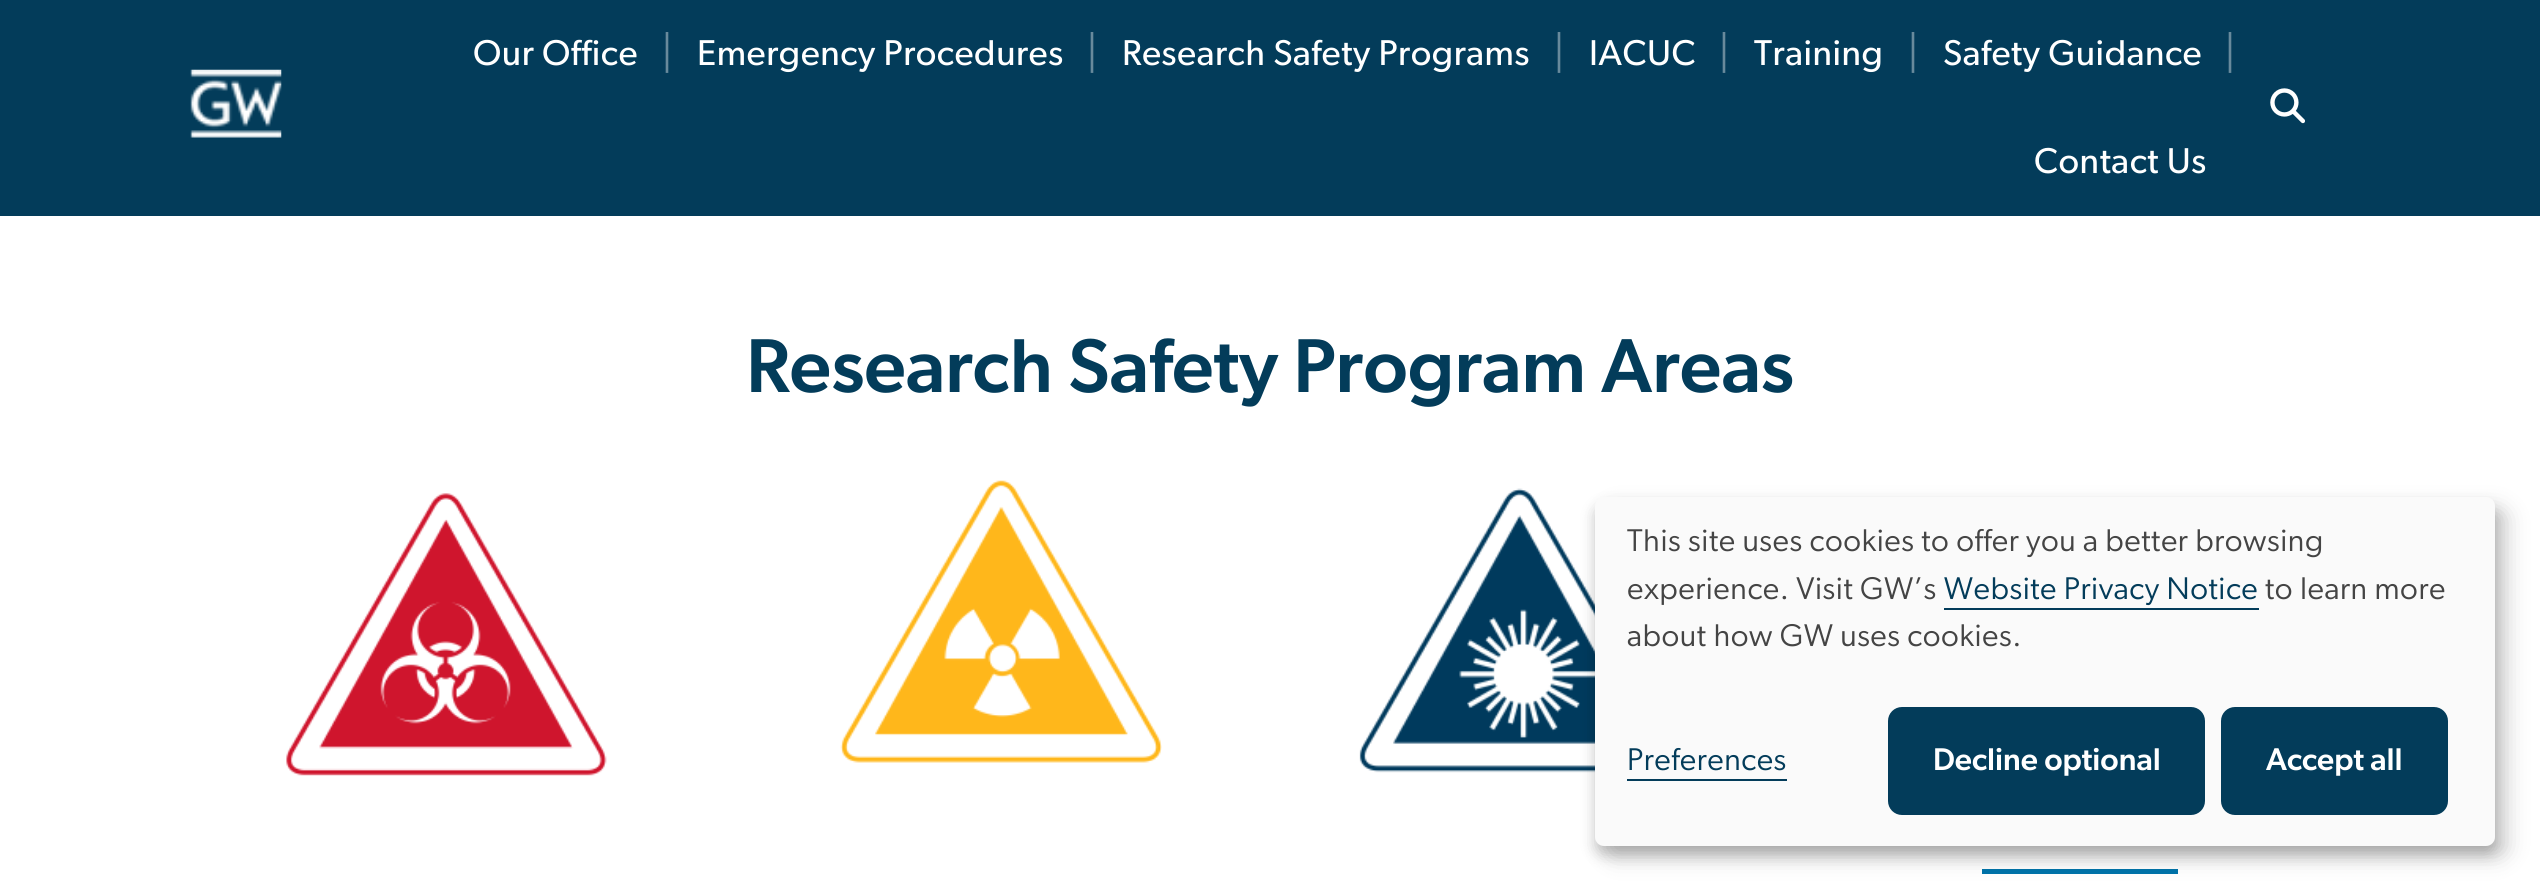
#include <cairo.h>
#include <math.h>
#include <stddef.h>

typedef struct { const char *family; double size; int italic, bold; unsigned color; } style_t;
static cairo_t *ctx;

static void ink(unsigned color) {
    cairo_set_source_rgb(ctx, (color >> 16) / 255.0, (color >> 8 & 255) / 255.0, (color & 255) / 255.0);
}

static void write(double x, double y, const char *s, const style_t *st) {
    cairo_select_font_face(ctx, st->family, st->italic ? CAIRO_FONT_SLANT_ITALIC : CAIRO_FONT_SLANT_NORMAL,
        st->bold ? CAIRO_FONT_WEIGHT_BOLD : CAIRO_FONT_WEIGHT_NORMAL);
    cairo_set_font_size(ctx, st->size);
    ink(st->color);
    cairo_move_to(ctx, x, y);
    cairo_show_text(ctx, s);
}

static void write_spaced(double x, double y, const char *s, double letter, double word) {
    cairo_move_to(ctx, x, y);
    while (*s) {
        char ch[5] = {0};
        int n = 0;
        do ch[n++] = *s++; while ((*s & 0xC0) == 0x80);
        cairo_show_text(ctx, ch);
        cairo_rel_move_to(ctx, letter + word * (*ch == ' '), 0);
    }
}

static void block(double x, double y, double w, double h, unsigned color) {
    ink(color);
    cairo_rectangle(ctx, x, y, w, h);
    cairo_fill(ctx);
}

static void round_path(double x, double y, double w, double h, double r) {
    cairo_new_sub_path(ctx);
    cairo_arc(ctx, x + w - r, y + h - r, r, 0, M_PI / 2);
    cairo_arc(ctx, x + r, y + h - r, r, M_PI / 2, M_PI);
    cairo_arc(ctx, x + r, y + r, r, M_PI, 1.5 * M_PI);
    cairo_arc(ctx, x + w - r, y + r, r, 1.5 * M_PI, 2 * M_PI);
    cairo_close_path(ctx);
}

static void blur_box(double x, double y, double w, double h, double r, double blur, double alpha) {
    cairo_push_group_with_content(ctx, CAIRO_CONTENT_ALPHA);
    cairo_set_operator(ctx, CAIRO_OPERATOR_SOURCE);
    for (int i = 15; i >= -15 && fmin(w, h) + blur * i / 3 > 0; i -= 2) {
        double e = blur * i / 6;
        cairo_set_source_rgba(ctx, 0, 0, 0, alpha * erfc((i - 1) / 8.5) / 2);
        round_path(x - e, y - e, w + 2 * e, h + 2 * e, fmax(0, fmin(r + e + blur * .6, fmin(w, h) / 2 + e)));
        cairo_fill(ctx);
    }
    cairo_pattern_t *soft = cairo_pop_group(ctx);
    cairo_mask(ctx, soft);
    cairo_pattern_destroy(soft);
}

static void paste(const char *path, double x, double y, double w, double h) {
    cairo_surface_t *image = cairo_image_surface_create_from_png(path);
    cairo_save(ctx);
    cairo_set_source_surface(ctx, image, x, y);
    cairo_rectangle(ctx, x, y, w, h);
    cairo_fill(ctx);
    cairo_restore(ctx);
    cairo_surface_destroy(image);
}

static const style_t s1 = {"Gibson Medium", 76.5, 0, 0, 0x033c5a};
static const style_t s2 = {"Gibson Medium", 31.5, 0, 0, 0xffffff};

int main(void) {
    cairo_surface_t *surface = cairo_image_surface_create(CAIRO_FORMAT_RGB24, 2540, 891);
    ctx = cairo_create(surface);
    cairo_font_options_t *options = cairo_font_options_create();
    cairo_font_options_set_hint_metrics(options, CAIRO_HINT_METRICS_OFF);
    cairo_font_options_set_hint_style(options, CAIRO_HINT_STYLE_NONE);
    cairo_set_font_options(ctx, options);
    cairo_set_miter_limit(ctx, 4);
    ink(0xffffff);
    cairo_paint(ctx);
    block(0, 0, 2540, 216, 0x033c5a);
    paste("pic1.png", 190, 69, 92, 69);
    cairo_select_font_face(ctx, "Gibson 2", CAIRO_FONT_SLANT_NORMAL, CAIRO_FONT_WEIGHT_NORMAL);
    cairo_set_font_size(ctx, 36);
    ink(0xffffff);
    write_spaced(473, 65, "Our Office", 0.55, 0);
    cairo_select_font_face(ctx, "Gibson", CAIRO_FONT_SLANT_NORMAL, CAIRO_FONT_WEIGHT_NORMAL);
    cairo_set_font_size(ctx, 45);
    ink(0x688a9c);
    write_spaced(661, 68, "|", 0.55, 0);
    cairo_select_font_face(ctx, "Gibson 2", CAIRO_FONT_SLANT_NORMAL, CAIRO_FONT_WEIGHT_NORMAL);
    cairo_set_font_size(ctx, 36);
    ink(0xffffff);
    write_spaced(697, 65, "Emergency Procedures", 0.55, 0);
    cairo_select_font_face(ctx, "Gibson", CAIRO_FONT_SLANT_NORMAL, CAIRO_FONT_WEIGHT_NORMAL);
    cairo_set_font_size(ctx, 45);
    ink(0x688a9c);
    write_spaced(1086, 68, "|", 0.55, 0);
    cairo_select_font_face(ctx, "Gibson 2", CAIRO_FONT_SLANT_NORMAL, CAIRO_FONT_WEIGHT_NORMAL);
    cairo_set_font_size(ctx, 36);
    ink(0xffffff);
    write_spaced(1122, 65, "Research Safety Programs", 0.55, 0);
    cairo_select_font_face(ctx, "Gibson", CAIRO_FONT_SLANT_NORMAL, CAIRO_FONT_WEIGHT_NORMAL);
    cairo_set_font_size(ctx, 45);
    ink(0x688a9c);
    write_spaced(1553, 68, "|", 0.55, 0);
    cairo_select_font_face(ctx, "Gibson 2", CAIRO_FONT_SLANT_NORMAL, CAIRO_FONT_WEIGHT_NORMAL);
    cairo_set_font_size(ctx, 36);
    ink(0xffffff);
    write_spaced(1589, 65, "IACUC", 0.55, 0);
    cairo_select_font_face(ctx, "Gibson", CAIRO_FONT_SLANT_NORMAL, CAIRO_FONT_WEIGHT_NORMAL);
    cairo_set_font_size(ctx, 45);
    ink(0x688a9c);
    write_spaced(1718, 68, "|", 0.55, 0);
    cairo_select_font_face(ctx, "Gibson 2", CAIRO_FONT_SLANT_NORMAL, CAIRO_FONT_WEIGHT_NORMAL);
    cairo_set_font_size(ctx, 36);
    ink(0xffffff);
    write_spaced(1754, 65, "Training", 0.55, 0);
    cairo_select_font_face(ctx, "Gibson", CAIRO_FONT_SLANT_NORMAL, CAIRO_FONT_WEIGHT_NORMAL);
    cairo_set_font_size(ctx, 45);
    ink(0x688a9c);
    write_spaced(1907, 68, "|", 0.55, 0);
    cairo_select_font_face(ctx, "Gibson 2", CAIRO_FONT_SLANT_NORMAL, CAIRO_FONT_WEIGHT_NORMAL);
    cairo_set_font_size(ctx, 36);
    ink(0xffffff);
    write_spaced(1943, 65, "Safety Guidance", 0.55, 0);
    cairo_select_font_face(ctx, "Gibson", CAIRO_FONT_SLANT_NORMAL, CAIRO_FONT_WEIGHT_NORMAL);
    cairo_set_font_size(ctx, 45);
    ink(0x688a9c);
    write_spaced(2224, 68, "|", 0.55, 0);
    cairo_select_font_face(ctx, "Gibson 2", CAIRO_FONT_SLANT_NORMAL, CAIRO_FONT_WEIGHT_NORMAL);
    cairo_set_font_size(ctx, 36);
    ink(0xffffff);
    write_spaced(2034, 173, "Contact Us", 0.55, 0);
    paste("pic2.png", 2270, 88, 35, 36);
    write(746, 392, "Research Safety Program Areas", &s1);
    paste("pic3.png", 286, 493, 321, 283);
    paste("pic4.png", 840, 480, 322, 283);
    paste("pic5.png", 1359, 488, 236, 285);
    block(1982, 869, 196, 5, 0x0073aa);
    ink(0x000000);
    blur_box(1607, 509, 900, 348, 9, 11, 0.19);
    blur_box(1595, 506, 900, 349, 9, 7, 0.2);
    ink(0xfafafa);
    round_path(1595, 497, 900, 349, 9);
    cairo_fill(ctx);
    cairo_select_font_face(ctx, "Gibson", CAIRO_FONT_SLANT_NORMAL, CAIRO_FONT_WEIGHT_NORMAL);
    cairo_set_font_size(ctx, 31.5);
    ink(0x444444);
    write_spaced(1627, 551, "This site uses cookies to offer you a better browsing", 0.55, 0);
    write_spaced(1627, 599, "experience. Visit GW’s", 0.55, 0);
    block(1944, 608, 315, 2, 0x033c5a);
    write_spaced(1944, 599, "Website Privacy Notice", 0.55, 0);
    ink(0x444444);
    write_spaced(2265, 599, "to learn more", 0.55, 0);
    write_spaced(1627, 646, "about how GW uses cookies.", 0.55, 0);
    block(1627, 779, 160, 2, 0x033c5a);
    write_spaced(1627, 770, "Preferences", 0.55, 0);
    round_path(1891.5, 710.5, 310, 101, 10.5);
    cairo_fill_preserve(ctx);
    cairo_set_line_width(ctx, 7);
    cairo_stroke(ctx);
    write(1933, 770, "Decline optional", &s2);
    ink(0x033c5a);
    round_path(2224.5, 710.5, 220, 101, 10.5);
    cairo_fill_preserve(ctx);
    cairo_stroke(ctx);
    write(2266, 770, "Accept all", &s2);
    cairo_surface_write_to_png(surface, "screenshot.png");
    cairo_font_options_destroy(options);
    cairo_destroy(ctx);
    cairo_surface_destroy(surface);
    return 0;
}
